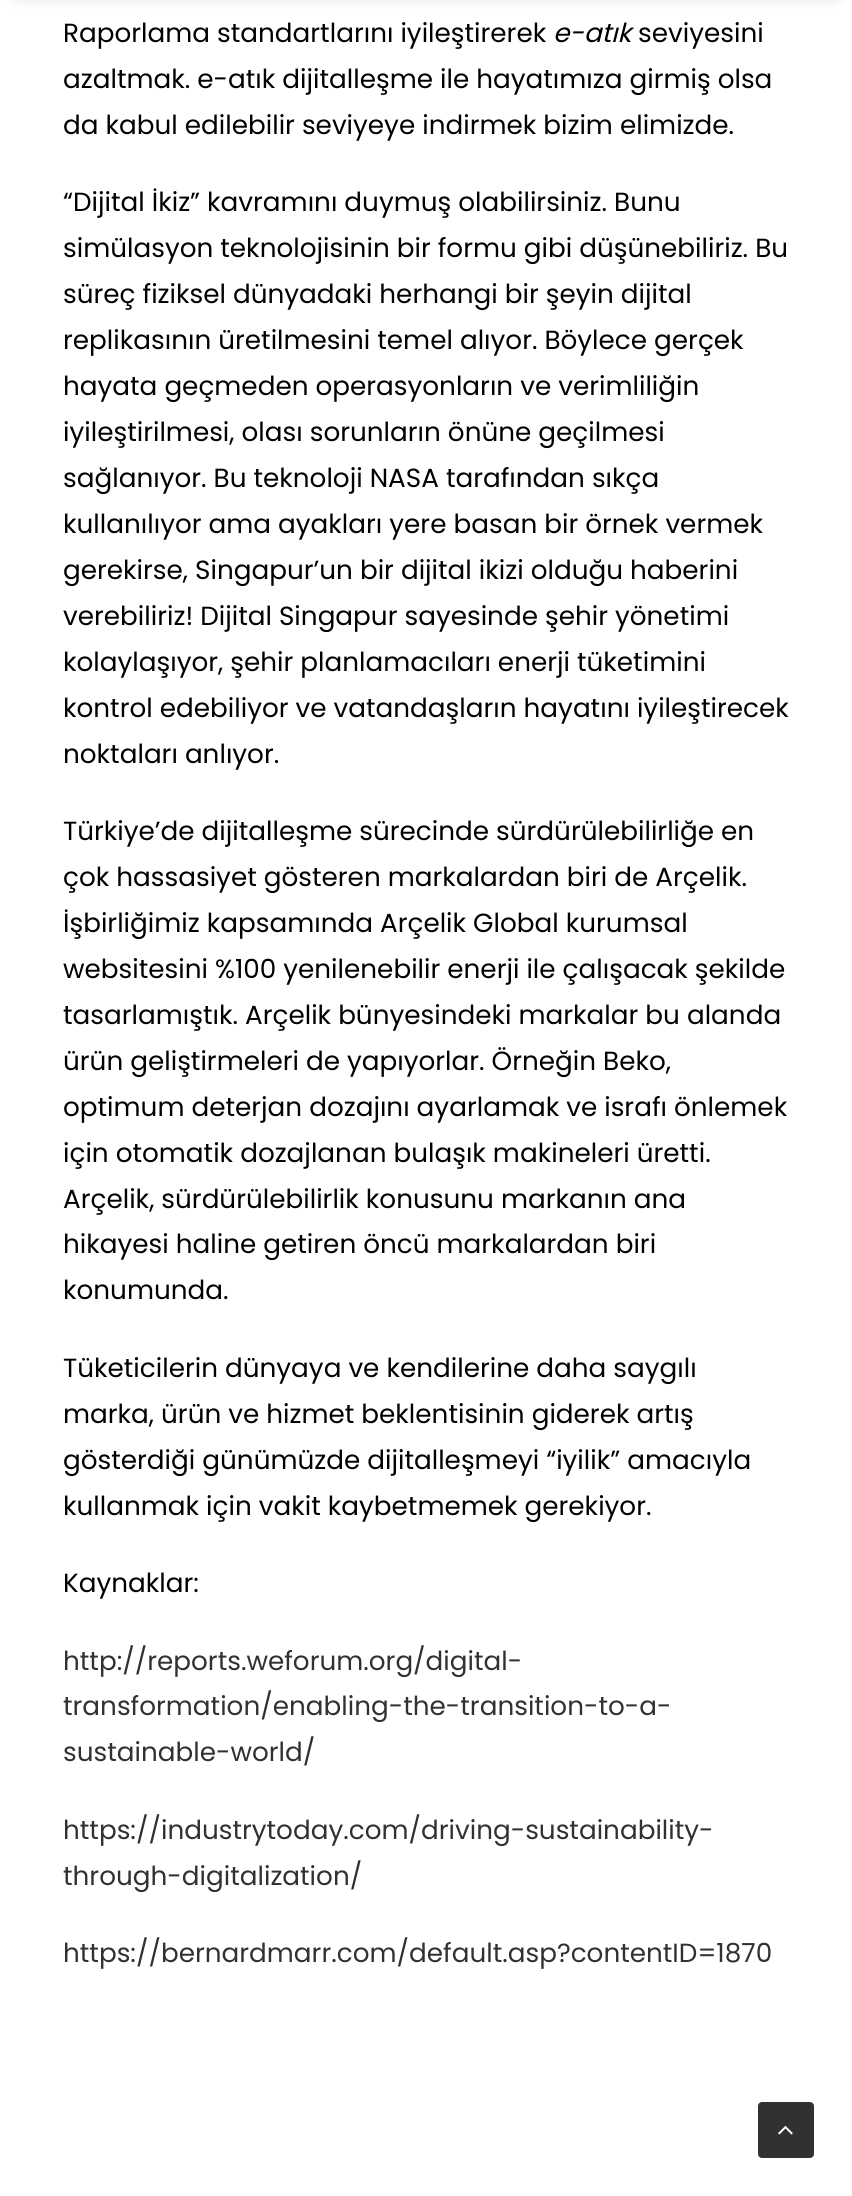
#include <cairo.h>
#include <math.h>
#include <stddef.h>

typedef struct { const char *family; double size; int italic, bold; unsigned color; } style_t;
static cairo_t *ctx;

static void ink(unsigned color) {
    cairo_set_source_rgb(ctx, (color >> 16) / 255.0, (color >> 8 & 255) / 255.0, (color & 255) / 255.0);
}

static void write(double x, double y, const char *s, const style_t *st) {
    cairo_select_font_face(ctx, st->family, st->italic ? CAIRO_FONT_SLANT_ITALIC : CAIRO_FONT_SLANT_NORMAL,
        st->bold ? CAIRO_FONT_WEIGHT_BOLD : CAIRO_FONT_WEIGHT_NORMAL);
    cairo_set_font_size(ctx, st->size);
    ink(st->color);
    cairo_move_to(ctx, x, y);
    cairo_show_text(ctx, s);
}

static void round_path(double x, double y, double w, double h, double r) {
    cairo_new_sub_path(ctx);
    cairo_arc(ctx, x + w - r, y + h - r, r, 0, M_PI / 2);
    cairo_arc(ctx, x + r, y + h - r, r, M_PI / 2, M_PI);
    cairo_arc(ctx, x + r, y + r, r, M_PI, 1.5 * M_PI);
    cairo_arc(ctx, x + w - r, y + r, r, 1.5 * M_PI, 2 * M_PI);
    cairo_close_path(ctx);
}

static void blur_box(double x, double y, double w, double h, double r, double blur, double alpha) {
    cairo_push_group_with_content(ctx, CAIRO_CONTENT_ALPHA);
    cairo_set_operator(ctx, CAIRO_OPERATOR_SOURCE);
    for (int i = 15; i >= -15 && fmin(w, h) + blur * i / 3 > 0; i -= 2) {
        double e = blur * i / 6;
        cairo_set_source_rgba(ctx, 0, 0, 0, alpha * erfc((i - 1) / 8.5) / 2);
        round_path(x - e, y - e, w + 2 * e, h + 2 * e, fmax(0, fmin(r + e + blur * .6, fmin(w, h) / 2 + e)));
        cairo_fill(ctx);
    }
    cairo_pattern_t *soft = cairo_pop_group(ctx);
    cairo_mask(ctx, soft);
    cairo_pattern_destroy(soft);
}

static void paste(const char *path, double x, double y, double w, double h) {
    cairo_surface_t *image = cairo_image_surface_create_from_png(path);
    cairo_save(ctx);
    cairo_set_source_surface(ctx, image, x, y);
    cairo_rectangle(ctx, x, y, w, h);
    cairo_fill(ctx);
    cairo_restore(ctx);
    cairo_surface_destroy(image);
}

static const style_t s1 = {"Poppins", 26.25, 0, 0, 0x000000};
static const style_t s2 = {"Poppins", 26.25, 1, 0, 0x000000};
static const style_t s3 = {"Poppins", 26.25, 0, 0, 0x303133};

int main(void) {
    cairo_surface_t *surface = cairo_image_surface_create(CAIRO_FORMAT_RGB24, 852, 2196);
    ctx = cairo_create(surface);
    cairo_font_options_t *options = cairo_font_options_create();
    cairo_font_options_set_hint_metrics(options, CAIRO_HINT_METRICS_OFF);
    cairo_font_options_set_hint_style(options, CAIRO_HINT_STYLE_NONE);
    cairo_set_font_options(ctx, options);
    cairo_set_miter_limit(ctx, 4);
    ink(0xffffff);
    cairo_paint(ctx);
    ink(0x000000);
    blur_box(18, -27, 817, 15, 0, 9, 0.6);
    write(63, 42, "Raporlama standartlarını iyileştirerek", &s1);
    write(553, 42, "e-atık", &s2);
    write(638, 42, "seviyesini", &s1);
    write(63, 88, "azaltmak. e-atık dijitalleşme ile hayatımıza girmiş olsa", &s1);
    write(63, 134, "da kabul edilebilir seviyeye indirmek bizim elimizde.", &s1);
    write(63, 211, "“Dijital İkiz” kavramını duymuş olabilirsiniz. Bunu", &s1);
    write(63, 257, "simülasyon teknolojisinin bir formu gibi düşünebiliriz. Bu", &s1);
    write(63, 303, "süreç fiziksel dünyadaki herhangi bir şeyin dijital", &s1);
    write(63, 349, "replikasının üretilmesini temel alıyor. Böylece gerçek", &s1);
    write(63, 395, "hayata geçmeden operasyonların ve verimliliğin", &s1);
    write(63, 441, "iyileştirilmesi, olası sorunların önüne geçilmesi", &s1);
    write(63, 487, "sağlanıyor. Bu teknoloji NASA tarafından sıkça", &s1);
    write(63, 533, "kullanılıyor ama ayakları yere basan bir örnek vermek", &s1);
    write(63, 579, "gerekirse, Singapur’un bir dijital ikizi olduğu haberini", &s1);
    write(63, 625, "verebiliriz! Dijital Singapur sayesinde şehir yönetimi", &s1);
    write(63, 671, "kolaylaşıyor, şehir planlamacıları enerji tüketimini", &s1);
    write(63, 717, "kontrol edebiliyor ve vatandaşların hayatını iyileştirecek", &s1);
    write(63, 763, "noktaları anlıyor.", &s1);
    write(63, 840, "Türkiye’de dijitalleşme sürecinde sürdürülebilirliğe en", &s1);
    write(63, 886, "çok hassasiyet gösteren markalardan biri de Arçelik.", &s1);
    write(63, 932, "İşbirliğimiz kapsamında Arçelik Global kurumsal", &s1);
    write(63, 978, "websitesini %100 yenilenebilir enerji ile çalışacak şekilde", &s1);
    write(63, 1024, "tasarlamıştık. Arçelik bünyesindeki markalar bu alanda", &s1);
    write(63, 1070, "ürün geliştirmeleri de yapıyorlar. Örneğin Beko,", &s1);
    write(63, 1116, "optimum deterjan dozajını ayarlamak ve israfı önlemek", &s1);
    write(63, 1162, "için otomatik dozajlanan bulaşık makineleri üretti.", &s1);
    write(63, 1208, "Arçelik, sürdürülebilirlik konusunu markanın ana", &s1);
    write(63, 1253, "hikayesi haline getiren öncü markalardan biri", &s1);
    write(63, 1299, "konumunda.", &s1);
    write(63, 1377, "Tüketicilerin dünyaya ve kendilerine daha saygılı", &s1);
    write(63, 1423, "marka, ürün ve hizmet beklentisinin giderek artış", &s1);
    write(63, 1469, "gösterdiği günümüzde dijitalleşmeyi “iyilik” amacıyla", &s1);
    write(63, 1515, "kullanmak için vakit kaybetmemek gerekiyor.", &s1);
    write(63, 1592, "Kaynaklar:", &s1);
    write(63, 1670, "http://reports.weforum.org/digital-", &s3);
    write(63, 1715, "transformation/enabling-the-transition-to-a-", &s3);
    write(63, 1761, "sustainable-world/", &s3);
    write(63, 1839, "https://industrytoday.com/driving-sustainability-", &s3);
    write(63, 1885, "through-digitalization/", &s3);
    write(63, 1962, "https://bernardmarr.com/default.asp?contentID=1870", &s3);
    round_path(759, 2103, 54, 54, 3);
    cairo_fill_preserve(ctx);
    cairo_stroke(ctx);
    paste("pic1.png", 778, 2125, 15, 10);
    cairo_surface_write_to_png(surface, "screenshot.png");
    cairo_font_options_destroy(options);
    cairo_destroy(ctx);
    cairo_surface_destroy(surface);
    return 0;
}
